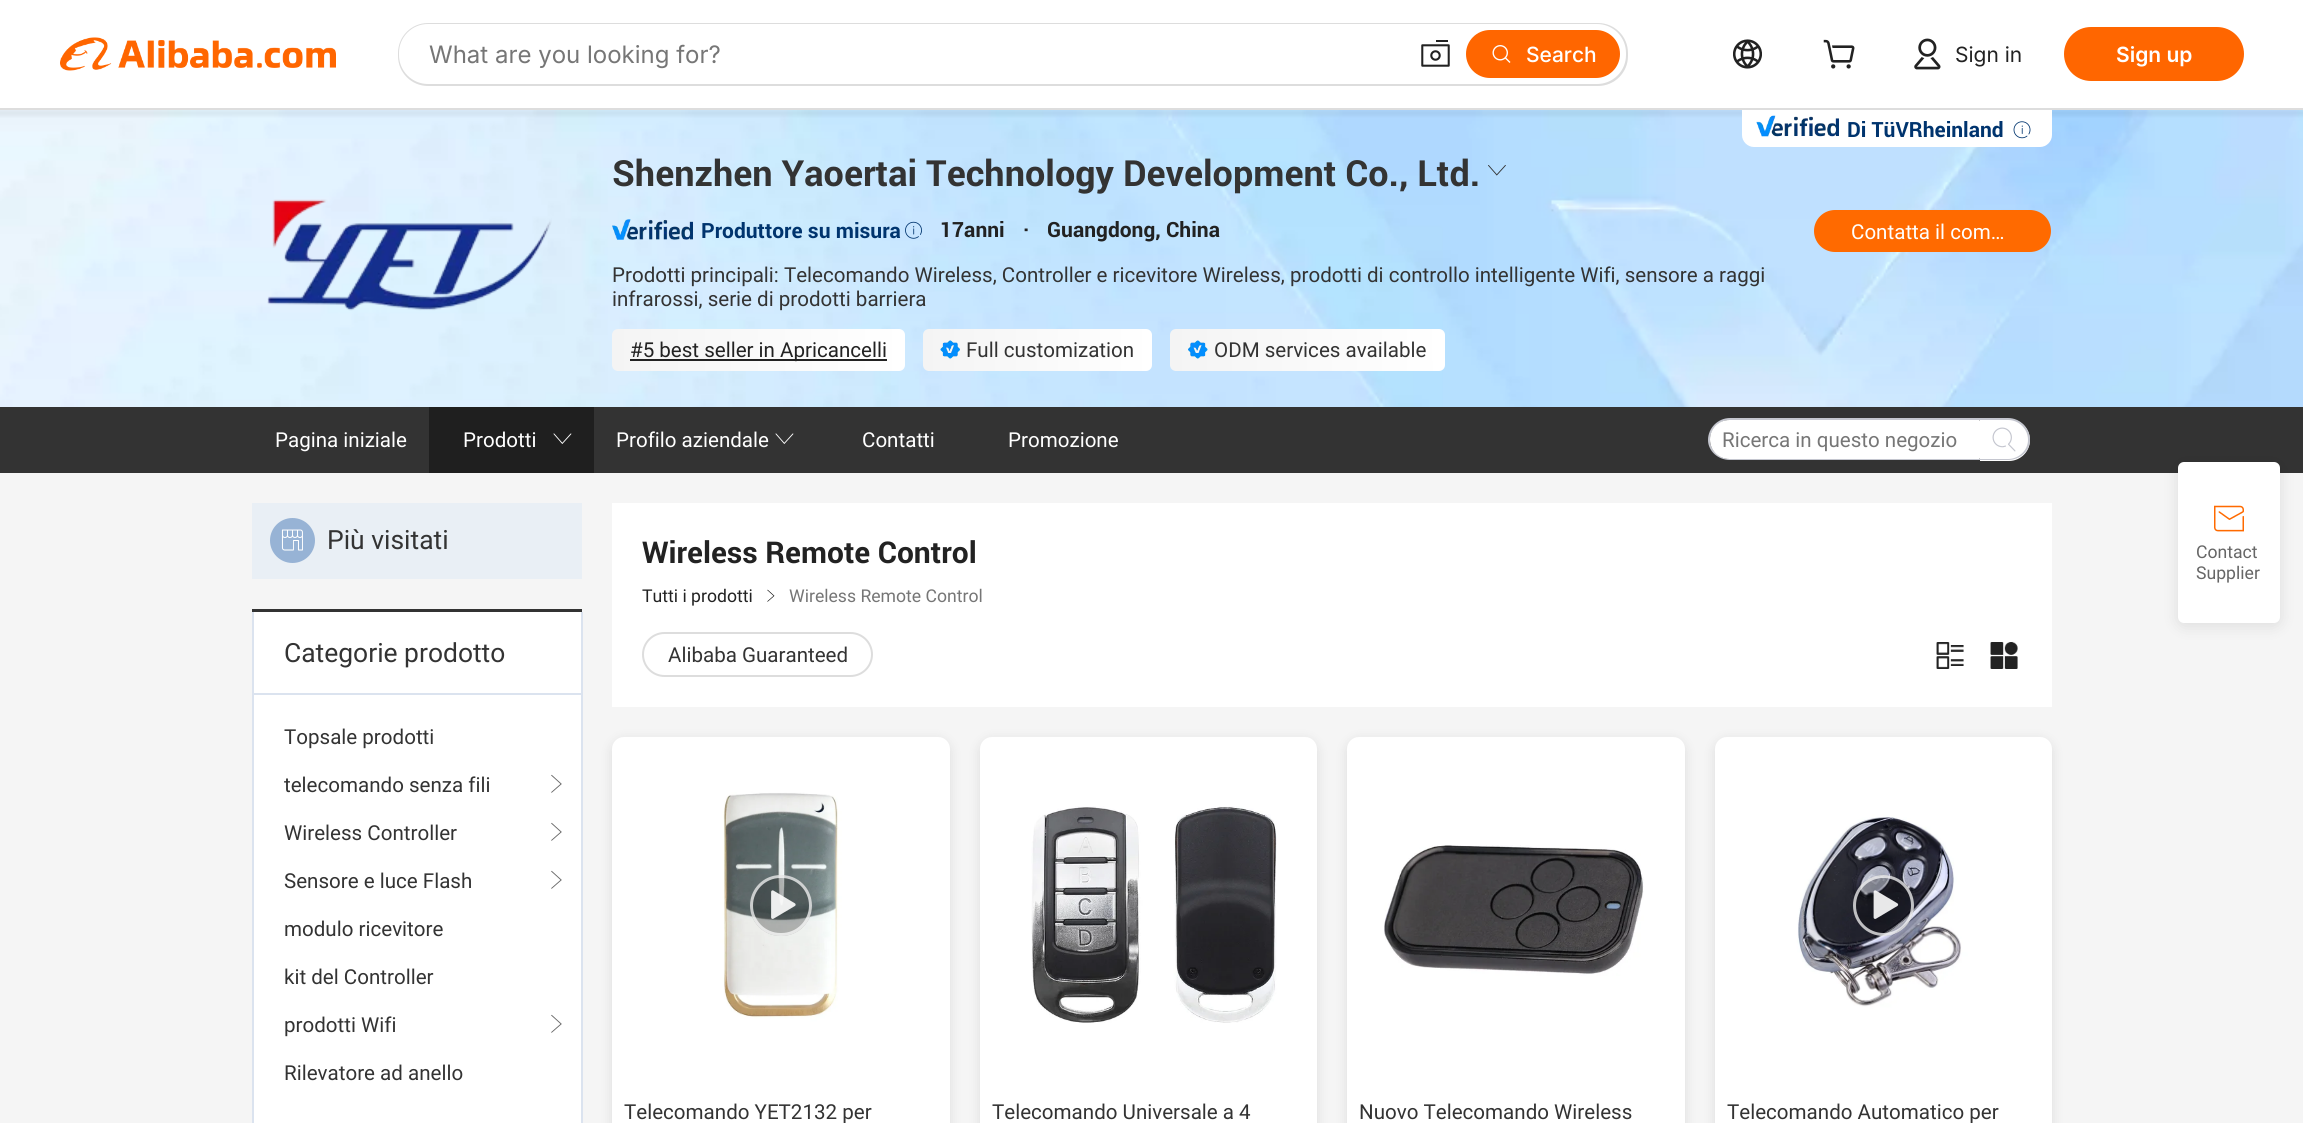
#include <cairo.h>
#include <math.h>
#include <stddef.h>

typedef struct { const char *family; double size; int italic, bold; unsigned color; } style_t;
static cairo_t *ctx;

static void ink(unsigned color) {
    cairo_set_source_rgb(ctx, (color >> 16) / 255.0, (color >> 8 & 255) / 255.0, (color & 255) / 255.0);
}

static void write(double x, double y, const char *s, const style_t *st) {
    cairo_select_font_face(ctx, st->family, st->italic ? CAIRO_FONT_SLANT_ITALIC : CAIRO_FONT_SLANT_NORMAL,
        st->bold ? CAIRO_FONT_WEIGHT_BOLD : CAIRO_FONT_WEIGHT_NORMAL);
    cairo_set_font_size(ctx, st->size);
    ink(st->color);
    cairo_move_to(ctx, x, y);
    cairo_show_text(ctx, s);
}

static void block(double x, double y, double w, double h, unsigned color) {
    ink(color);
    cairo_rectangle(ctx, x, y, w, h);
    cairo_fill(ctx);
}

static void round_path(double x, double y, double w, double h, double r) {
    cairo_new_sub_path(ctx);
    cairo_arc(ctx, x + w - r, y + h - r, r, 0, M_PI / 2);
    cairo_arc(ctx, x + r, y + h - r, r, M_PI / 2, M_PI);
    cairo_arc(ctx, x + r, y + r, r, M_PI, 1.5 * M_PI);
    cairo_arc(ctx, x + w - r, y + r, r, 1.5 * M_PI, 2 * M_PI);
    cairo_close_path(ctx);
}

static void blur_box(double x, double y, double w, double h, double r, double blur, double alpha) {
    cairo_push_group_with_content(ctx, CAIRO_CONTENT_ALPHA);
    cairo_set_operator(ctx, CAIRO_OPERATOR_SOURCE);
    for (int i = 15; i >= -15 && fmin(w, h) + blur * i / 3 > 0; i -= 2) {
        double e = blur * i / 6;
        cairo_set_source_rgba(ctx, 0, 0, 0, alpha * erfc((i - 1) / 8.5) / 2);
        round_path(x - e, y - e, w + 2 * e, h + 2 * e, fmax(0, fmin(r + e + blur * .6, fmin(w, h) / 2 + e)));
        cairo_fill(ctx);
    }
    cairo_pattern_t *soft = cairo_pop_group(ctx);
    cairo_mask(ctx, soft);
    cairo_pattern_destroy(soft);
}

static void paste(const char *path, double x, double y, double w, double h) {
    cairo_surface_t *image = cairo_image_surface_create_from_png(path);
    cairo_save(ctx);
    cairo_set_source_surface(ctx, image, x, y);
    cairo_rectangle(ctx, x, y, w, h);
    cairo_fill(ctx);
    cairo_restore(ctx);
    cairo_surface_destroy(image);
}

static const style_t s1 = {"Inter", 24, 0, 0, 0x767676};
static const style_t s2 = {"Inter Medium", 21, 0, 0, 0xffffff};
static const style_t s3 = {"Inter", 21, 0, 0, 0x222222};
static const style_t s4 = {"Inter SemiBold", 21, 0, 0, 0xffffff};
static const style_t s5 = {"Roboto", 21, 0, 1, 0x00346e};
static const style_t s6 = {"Roboto", 36, 0, 1, 0x333333};
static const style_t s7 = {"Roboto", 21, 0, 1, 0x222222};
static const style_t s8 = {"Roboto", 21, 0, 0, 0x333333};
static const style_t s9 = {"Roboto", 21, 0, 0, 0x222222};
static const style_t s10 = {"Roboto", 21, 0, 0, 0xffffff};
static const style_t s11 = {"Roboto", 21, 0, 0, 0x767676};
static const style_t s12 = {"Roboto", 27, 0, 0, 0x333333};
static const style_t s13 = {"Roboto", 30, 0, 1, 0x222222};
static const style_t s14 = {"Roboto", 18, 0, 0, 0x222222};
static const style_t s15 = {"Roboto", 18, 0, 0, 0x767676};
static const style_t s16 = {"Roboto", 18, 0, 0, 0x666666};

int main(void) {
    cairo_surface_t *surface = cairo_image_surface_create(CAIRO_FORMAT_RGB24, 2303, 1123);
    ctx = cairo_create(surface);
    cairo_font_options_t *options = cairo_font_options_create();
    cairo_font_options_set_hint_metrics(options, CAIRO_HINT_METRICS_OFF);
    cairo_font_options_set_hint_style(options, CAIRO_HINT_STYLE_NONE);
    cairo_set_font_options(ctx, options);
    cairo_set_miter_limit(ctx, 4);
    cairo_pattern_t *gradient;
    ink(0xf5f5f5);
    cairo_paint(ctx);
    paste("pic7.png", 0, 110, 2303, 297);
    ink(0x000000);
    blur_box(-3, 110, 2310, 6, 0, 1.5, 0.05);
    block(0, 0, 2303, 108, 0xffffff);
    block(0, 108, 2303, 2, 0xdddddd);
    paste("pic1.png", 60, 37, 276, 34);
    round_path(398, 23, 1230, 63, 30);
    cairo_fill(ctx);
    ink(0xffffff);
    round_path(399, 24, 1227, 60, 29);
    cairo_fill(ctx);
    write(429, 63, "What are you looking for?", &s1);
    paste("pic2.png", 1421, 40, 29, 27);
    ink(0xff6600);
    round_path(1466, 30, 154, 48, 24);
    cairo_fill(ctx);
    paste("pic3.png", 1492, 45, 19, 18);
    write(1526, 62, "Search", &s2);
    paste("pic4.png", 1733, 39, 29, 30);
    paste("pic5.png", 1823, 39, 32, 30);
    paste("pic6.png", 1914, 38, 27, 32);
    write(1955, 62, "Sign in", &s3);
    ink(0xff6600);
    round_path(2064, 27, 180, 54, 27);
    cairo_fill(ctx);
    write(2116, 62, "Sign up", &s4);
    cairo_new_path(ctx);
    cairo_move_to(ctx, 1742, 110);
    cairo_line_to(ctx, 2052, 110);
    cairo_line_to(ctx, 2052, 135);
    cairo_curve_to(ctx, 2052, 141.5, 2046.5, 147, 2040, 147);
    cairo_line_to(ctx, 1754, 147);
    cairo_curve_to(ctx, 1747.5, 147, 1742, 141.5, 1742, 135);
    cairo_close_path(ctx);
    cairo_fill(ctx);
    paste("pic8.png", 1756, 115, 83, 22);
    write(1847, 137, "Di TüVRheinland", &s5);
    paste("pic9.png", 2013, 121, 18, 18);
    paste("pic10.png", 267, 199, 285, 112);
    write(612, 186, "Shenzhen Yaoertai Technology Development Co., Ltd.", &s6);
    paste("pic11.png", 1488, 165, 18, 11);
    paste("pic12.png", 612, 219, 81, 21);
    write(701, 238, "Produttore su misura", &s5);
    paste("pic13.png", 905, 221, 17, 18);
    write(940, 237, "17anni", &s7);
    write(1023, 237, "·", &s7);
    write(1047, 237, "Guangdong, China", &s7);
    write(612, 282, "Prodotti principali: Telecomando Wireless, Controller e ricevitore Wireless, prodotti di controllo intelligente Wifi, sensore a raggi", &s8);
    write(612, 306, "infrarossi, serie di prodotti barriera", &s8);
    gradient = cairo_pattern_create_linear(905, 349, 612, 350);
    cairo_pattern_add_color_stop_rgba(gradient, 0, 1, 1, 1, 1);
    cairo_pattern_add_color_stop_rgba(gradient, 1, 0.957, 0.957, 0.957, 1);
    cairo_set_source(ctx, gradient);
    cairo_pattern_destroy(gradient);
    round_path(612, 329, 293, 42, 6);
    cairo_fill(ctx);
    block(630, 359, 257, 2, 0x222222);
    write(630, 357, "#5 best seller in Apricancelli", &s9);
    gradient = cairo_pattern_create_linear(1152, 350, 923, 350);
    cairo_pattern_add_color_stop_rgba(gradient, 0, 1, 1, 1, 1);
    cairo_pattern_add_color_stop_rgba(gradient, 1, 0.957, 0.957, 0.957, 1);
    cairo_set_source(ctx, gradient);
    cairo_pattern_destroy(gradient);
    round_path(923, 329, 229, 42, 6);
    cairo_fill(ctx);
    paste("pic14.png", 940, 340, 20, 19);
    write(966, 357, "Full customization", &s8);
    gradient = cairo_pattern_create_linear(1445, 349, 1170, 350);
    cairo_pattern_add_color_stop_rgba(gradient, 0, 1, 1, 1, 1);
    cairo_pattern_add_color_stop_rgba(gradient, 1, 0.957, 0.957, 0.957, 1);
    cairo_set_source(ctx, gradient);
    cairo_pattern_destroy(gradient);
    round_path(1170, 329, 275, 42, 6);
    cairo_fill(ctx);
    paste("pic15.png", 1188, 340, 20, 19);
    write(1214, 357, "ODM services available", &s8);
    ink(0xff6a00);
    round_path(1814, 210, 237, 42, 21);
    cairo_fill(ctx);
    write(1851, 239, "Contatta il com…", &s10);
    block(0, 407, 2303, 66, 0x333333);
    write(275, 447, "Pagina iniziale", &s10);
    block(429, 407, 165, 66, 0x1f1f1f);
    write(463, 447, "Prodotti", &s10);
    paste("pic16.png", 553, 433, 19, 11);
    write(616, 447, "Profilo aziendale", &s10);
    paste("pic17.png", 775, 433, 19, 11);
    write(862, 447, "Contatti", &s10);
    write(1008, 447, "Promozione", &s10);
    ink(0xc4c6cf);
    cairo_set_fill_rule(ctx, CAIRO_FILL_RULE_EVEN_ODD);
    cairo_new_path(ctx);
    cairo_move_to(ctx, 1730, 418);
    cairo_line_to(ctx, 1980, 418);
    cairo_line_to(ctx, 1980, 460);
    cairo_line_to(ctx, 1730, 460);
    cairo_curve_to(ctx, 1718, 460, 1708, 451, 1708, 440);
    cairo_curve_to(ctx, 1708, 428, 1718, 418, 1730, 418);
    cairo_close_path(ctx);
    cairo_move_to(ctx, 1730, 420);
    cairo_line_to(ctx, 1980, 420);
    cairo_line_to(ctx, 1980, 459);
    cairo_line_to(ctx, 1730, 459);
    cairo_curve_to(ctx, 1719, 459, 1710, 450, 1710, 440);
    cairo_curve_to(ctx, 1710, 429, 1719, 420, 1730, 420);
    cairo_close_path(ctx);
    cairo_fill(ctx);
    ink(0xffffff);
    cairo_new_path(ctx);
    cairo_move_to(ctx, 1729.5, 420);
    cairo_line_to(ctx, 1979, 420);
    cairo_curve_to(ctx, 1979.5, 420, 1980, 420.5, 1980, 421);
    cairo_line_to(ctx, 1980, 458);
    cairo_curve_to(ctx, 1980, 458.5, 1979.5, 459, 1979, 459);
    cairo_line_to(ctx, 1729.5, 459);
    cairo_curve_to(ctx, 1718.5, 459, 1710, 450.5, 1710, 439.5);
    cairo_curve_to(ctx, 1710, 428.5, 1718.5, 420, 1729.5, 420);
    cairo_close_path(ctx);
    cairo_fill(ctx);
    write(1722, 447, "Ricerca in questo negozio", &s11);
    ink(0xffffff);
    cairo_new_path(ctx);
    cairo_move_to(ctx, 1980, 419);
    cairo_line_to(ctx, 2009, 419);
    cairo_curve_to(ctx, 2020.5, 419, 2030, 428.5, 2030, 440);
    cairo_curve_to(ctx, 2030, 451.5, 2020.5, 461, 2009, 461);
    cairo_line_to(ctx, 1980, 461);
    cairo_close_path(ctx);
    cairo_fill(ctx);
    ink(0xc4c6cf);
    cairo_new_path(ctx);
    cairo_move_to(ctx, 1980, 418);
    cairo_line_to(ctx, 2008, 418);
    cairo_curve_to(ctx, 2020, 418, 2030, 428, 2030, 440);
    cairo_curve_to(ctx, 2030, 451, 2020, 460, 2008, 460);
    cairo_line_to(ctx, 1980, 460);
    cairo_close_path(ctx);
    cairo_move_to(ctx, 1980, 420);
    cairo_line_to(ctx, 2008, 420);
    cairo_curve_to(ctx, 2019, 420, 2028, 429, 2028, 440);
    cairo_curve_to(ctx, 2028, 450, 2019, 459, 2008, 459);
    cairo_line_to(ctx, 1980, 459);
    cairo_close_path(ctx);
    cairo_fill(ctx);
    paste("pic18.png", 1992, 427, 24, 25);
    block(252, 503, 330, 76, 0xe9eff5);
    ink(0x97b3d5);
    cairo_arc(ctx, 292.5, 540.5, 22.5, 0, 2 * M_PI);
    cairo_fill(ctx);
    paste("pic19.png", 281, 529, 22, 22);
    write(327, 549, "Più visitati", &s12);
    block(254, 612, 327, 511, 0xffffff);
    block(252, 609, 330, 3, 0x333333);
    block(581, 612, 2, 511, 0xdbe3ef);
    block(252, 612, 2, 511, 0xdbe3ef);
    block(254, 693, 327, 2, 0xdbe3ef);
    write(284, 662, "Categorie prodotto", &s12);
    write(284, 744, "Topsale prodotti", &s8);
    write(284, 792, "telecomando senza fili", &s8);
    paste("pic20.png", 551, 774, 11, 19);
    write(284, 840, "Wireless Controller", &s8);
    paste("pic20.png", 551, 822, 11, 19);
    write(284, 888, "Sensore e luce Flash", &s8);
    paste("pic20.png", 551, 870, 11, 19);
    write(284, 936, "modulo ricevitore", &s8);
    write(284, 984, "kit del Controller", &s8);
    write(284, 1032, "prodotti Wifi", &s8);
    paste("pic20.png", 551, 1014, 11, 19);
    write(284, 1080, "Rilevatore ad anello", &s8);
    block(612, 503, 1440, 204, 0xffffff);
    write(642, 563, "Wireless Remote Control", &s13);
    write(642, 602, "Tutti i prodotti", &s14);
    paste("pic21.png", 767, 589, 8, 13);
    write(789, 602, "Wireless Remote Control", &s15);
    round_path(643, 633, 229, 43, 21.5);
    ink(0xdddddd);
    cairo_stroke(ctx);
    write(668, 662, "Alibaba Guaranteed", &s8);
    paste("pic22.png", 1936, 642, 28, 27);
    paste("pic23.png", 1990, 641, 28, 28);
    ink(0x000000);
    blur_box(612, 740, 338, 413, 12, 6, 0.1);
    ink(0xffffff);
    round_path(612, 737, 338, 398, 12);
    cairo_fill(ctx);
    paste("pic24.png", 624, 749, 313, 313);
    cairo_set_source_rgba(ctx, 0, 0, 0, 0.27);
    round_path(750, 875, 62, 61, 30.5);
    cairo_fill(ctx);
    round_path(751.5, 876.5, 59, 58, 29);
    cairo_set_source_rgba(ctx, 1, 1, 1, 0.72);
    cairo_set_line_width(ctx, 3);
    cairo_stroke(ctx);
    paste("pic25.png", 771, 890, 25, 29);
    write(624, 1119, "Telecomando YET2132 per", &s8);
    ink(0x000000);
    blur_box(980, 740, 337, 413, 12, 6, 0.1);
    ink(0xffffff);
    round_path(980, 737, 337, 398, 12);
    cairo_fill(ctx);
    paste("pic26.png", 1031, 806, 246, 217);
    write(992, 1119, "Telecomando Universale a 4", &s8);
    ink(0x000000);
    blur_box(1347, 740, 338, 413, 12, 6, 0.1);
    ink(0xffffff);
    round_path(1347, 737, 338, 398, 12);
    cairo_fill(ctx);
    paste("pic27.png", 1384, 845, 260, 131);
    write(1359, 1119, "Nuovo Telecomando Wireless", &s8);
    ink(0x000000);
    blur_box(1715, 740, 337, 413, 12, 6, 0.1);
    ink(0xffffff);
    round_path(1715, 737, 337, 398, 12);
    cairo_fill(ctx);
    paste("pic28.png", 1727, 749, 313, 313);
    cairo_set_source_rgba(ctx, 0, 0, 0, 0.27);
    cairo_arc(ctx, 1883.5, 905.5, 30.5, 0, 2 * M_PI);
    cairo_fill(ctx);
    cairo_arc(ctx, 1883.5, 905.5, 29, 0, 2 * M_PI);
    cairo_set_source_rgba(ctx, 1, 1, 1, 0.72);
    cairo_stroke(ctx);
    paste("pic29.png", 1873, 890, 26, 29);
    write(1727, 1119, "Telecomando Automatico per", &s8);
    ink(0x000000);
    blur_box(2178, 465, 102, 161, 6, 7.5, 0.1);
    ink(0xffffff);
    round_path(2178, 462, 102, 161, 6);
    cairo_fill(ctx);
    paste("pic30.png", 2214, 505, 30, 27);
    write(2196, 558, "Contact", &s16);
    write(2196, 579, "Supplier", &s16);
    cairo_surface_write_to_png(surface, "screenshot.png");
    cairo_font_options_destroy(options);
    cairo_destroy(ctx);
    cairo_surface_destroy(surface);
    return 0;
}
